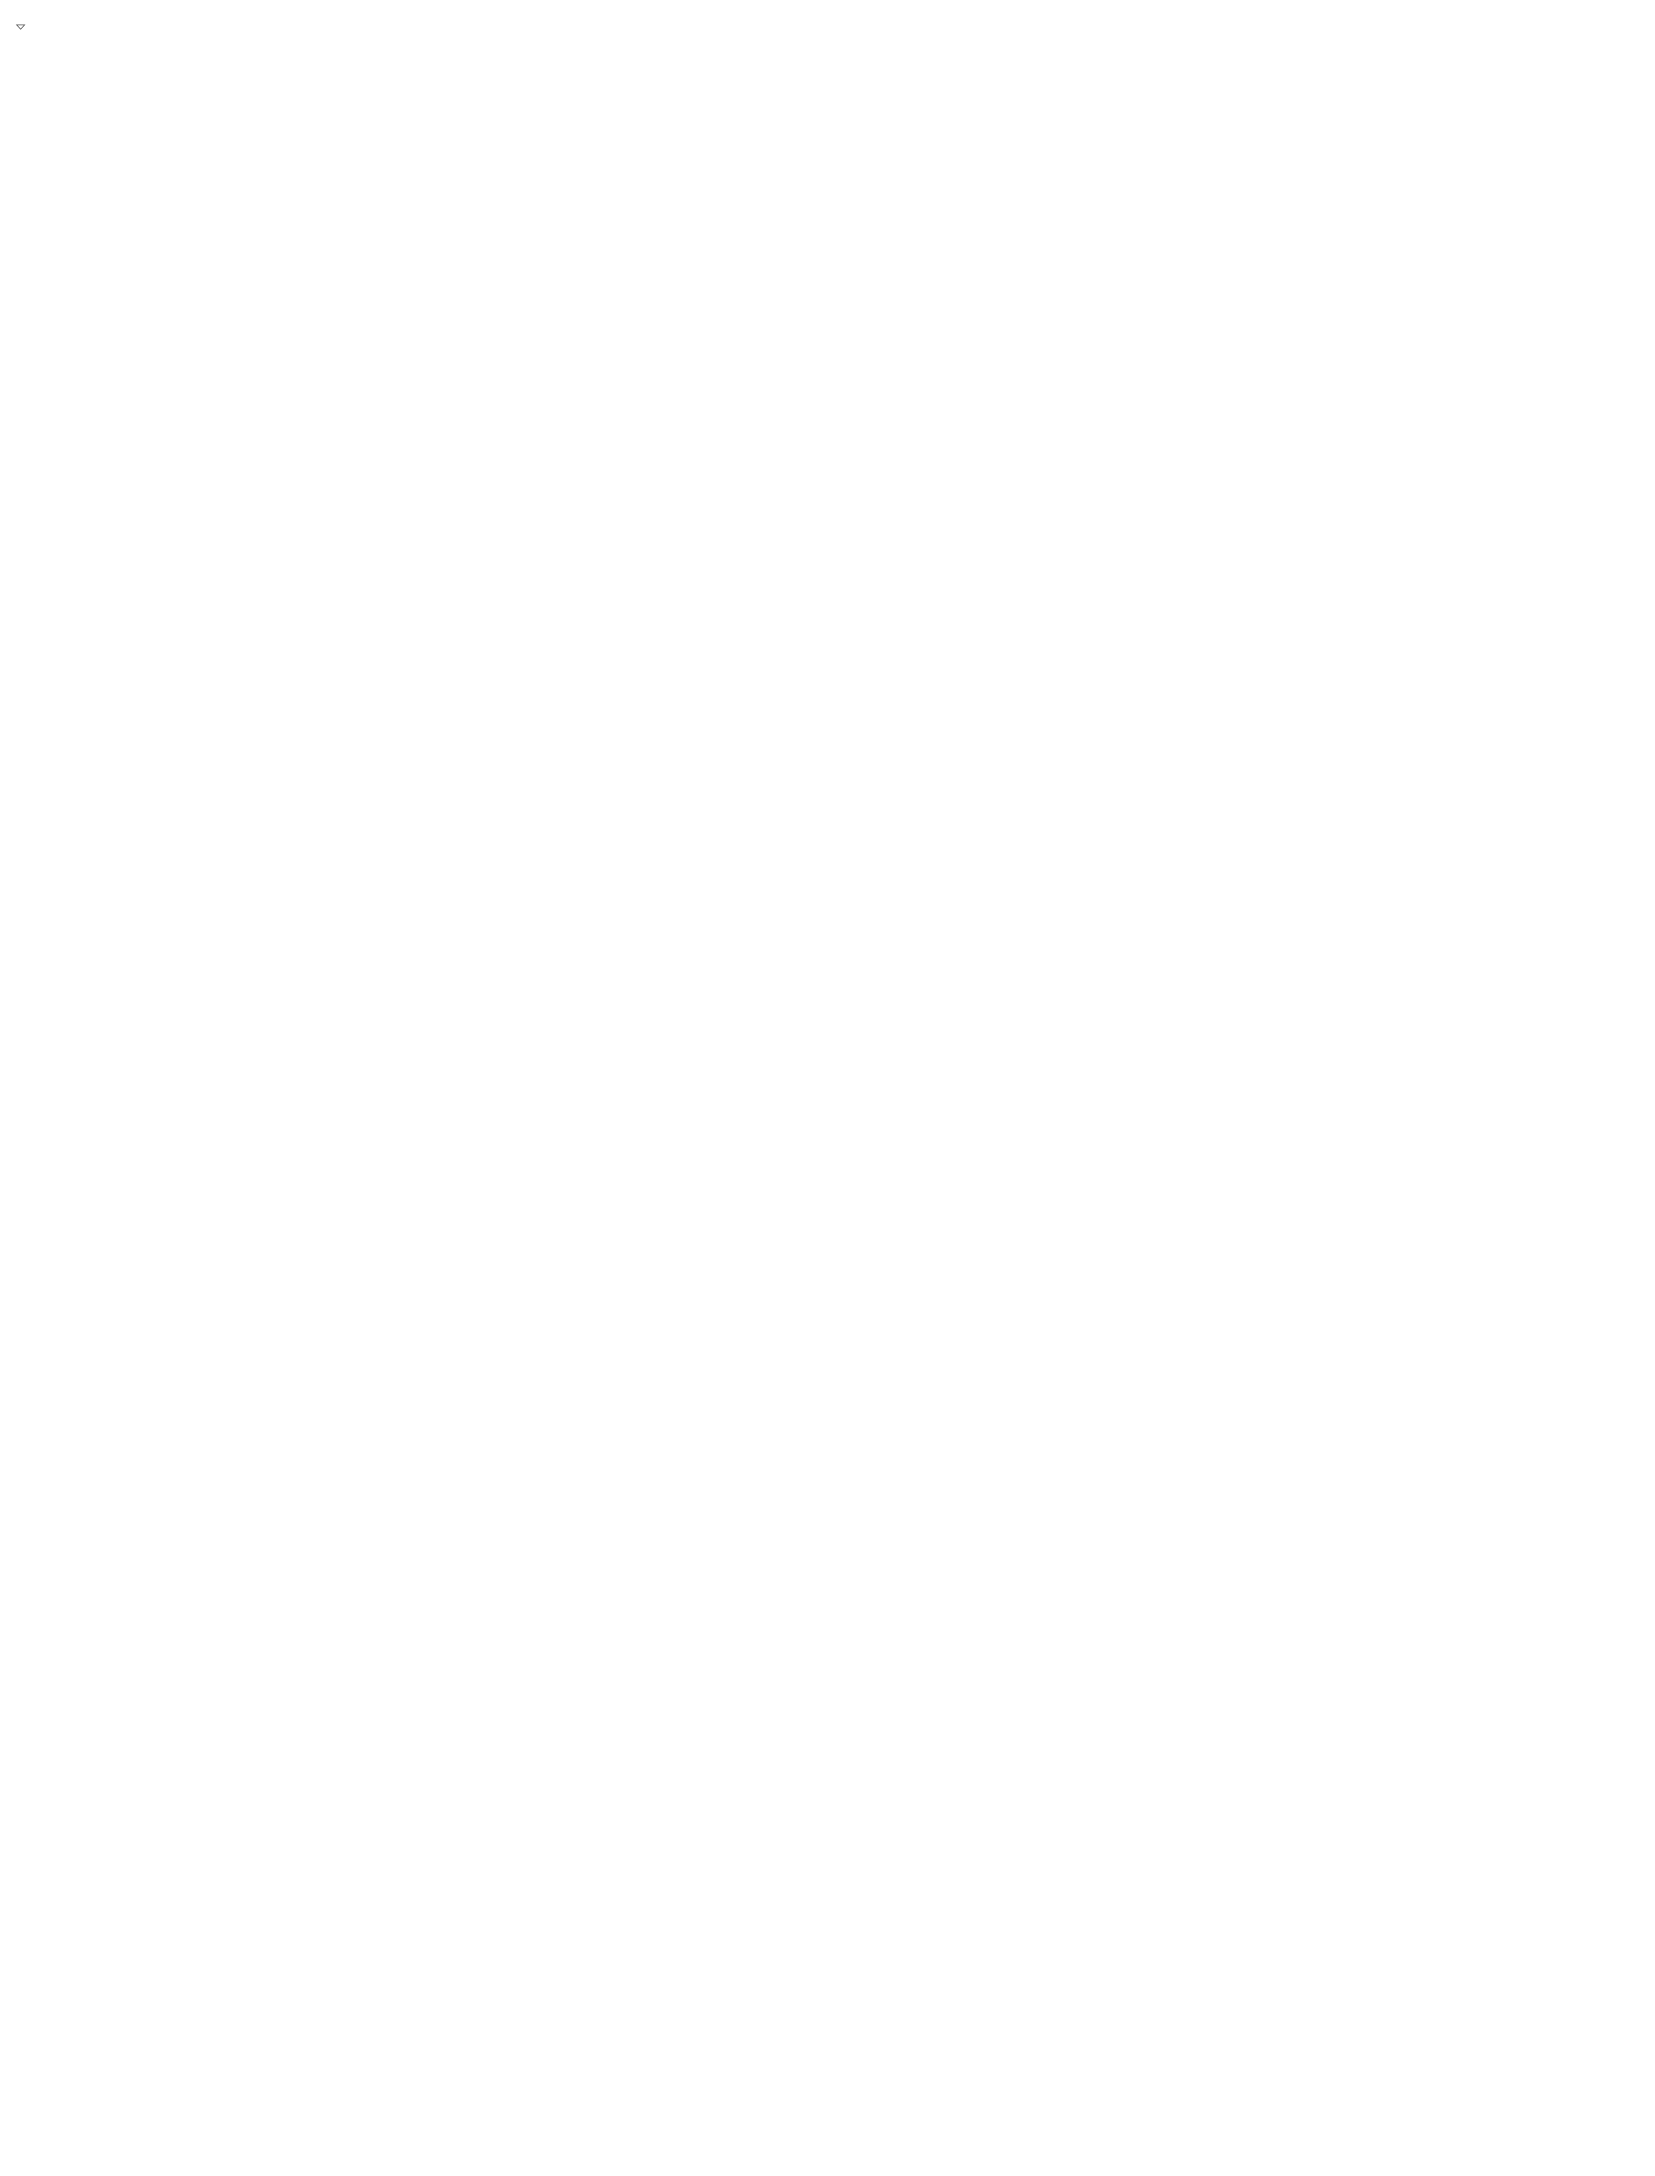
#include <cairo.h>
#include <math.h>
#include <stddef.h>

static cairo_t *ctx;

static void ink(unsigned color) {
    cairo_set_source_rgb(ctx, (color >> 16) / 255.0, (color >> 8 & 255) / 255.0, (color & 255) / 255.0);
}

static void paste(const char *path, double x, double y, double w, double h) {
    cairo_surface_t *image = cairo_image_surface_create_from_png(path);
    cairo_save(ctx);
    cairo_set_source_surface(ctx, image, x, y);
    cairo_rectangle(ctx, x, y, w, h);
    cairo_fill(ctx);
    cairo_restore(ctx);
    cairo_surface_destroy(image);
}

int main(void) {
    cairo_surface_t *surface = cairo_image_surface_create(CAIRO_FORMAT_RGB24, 1655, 2176);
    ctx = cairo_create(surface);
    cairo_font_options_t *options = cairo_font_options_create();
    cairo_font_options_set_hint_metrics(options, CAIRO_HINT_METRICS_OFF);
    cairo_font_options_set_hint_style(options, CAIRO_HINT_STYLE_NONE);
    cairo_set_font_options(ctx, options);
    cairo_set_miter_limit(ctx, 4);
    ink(0xffffff);
    cairo_paint(ctx);
    paste("pic1.png", 15, 24, 11, 6);
    cairo_surface_write_to_png(surface, "screenshot.png");
    cairo_font_options_destroy(options);
    cairo_destroy(ctx);
    cairo_surface_destroy(surface);
    return 0;
}
